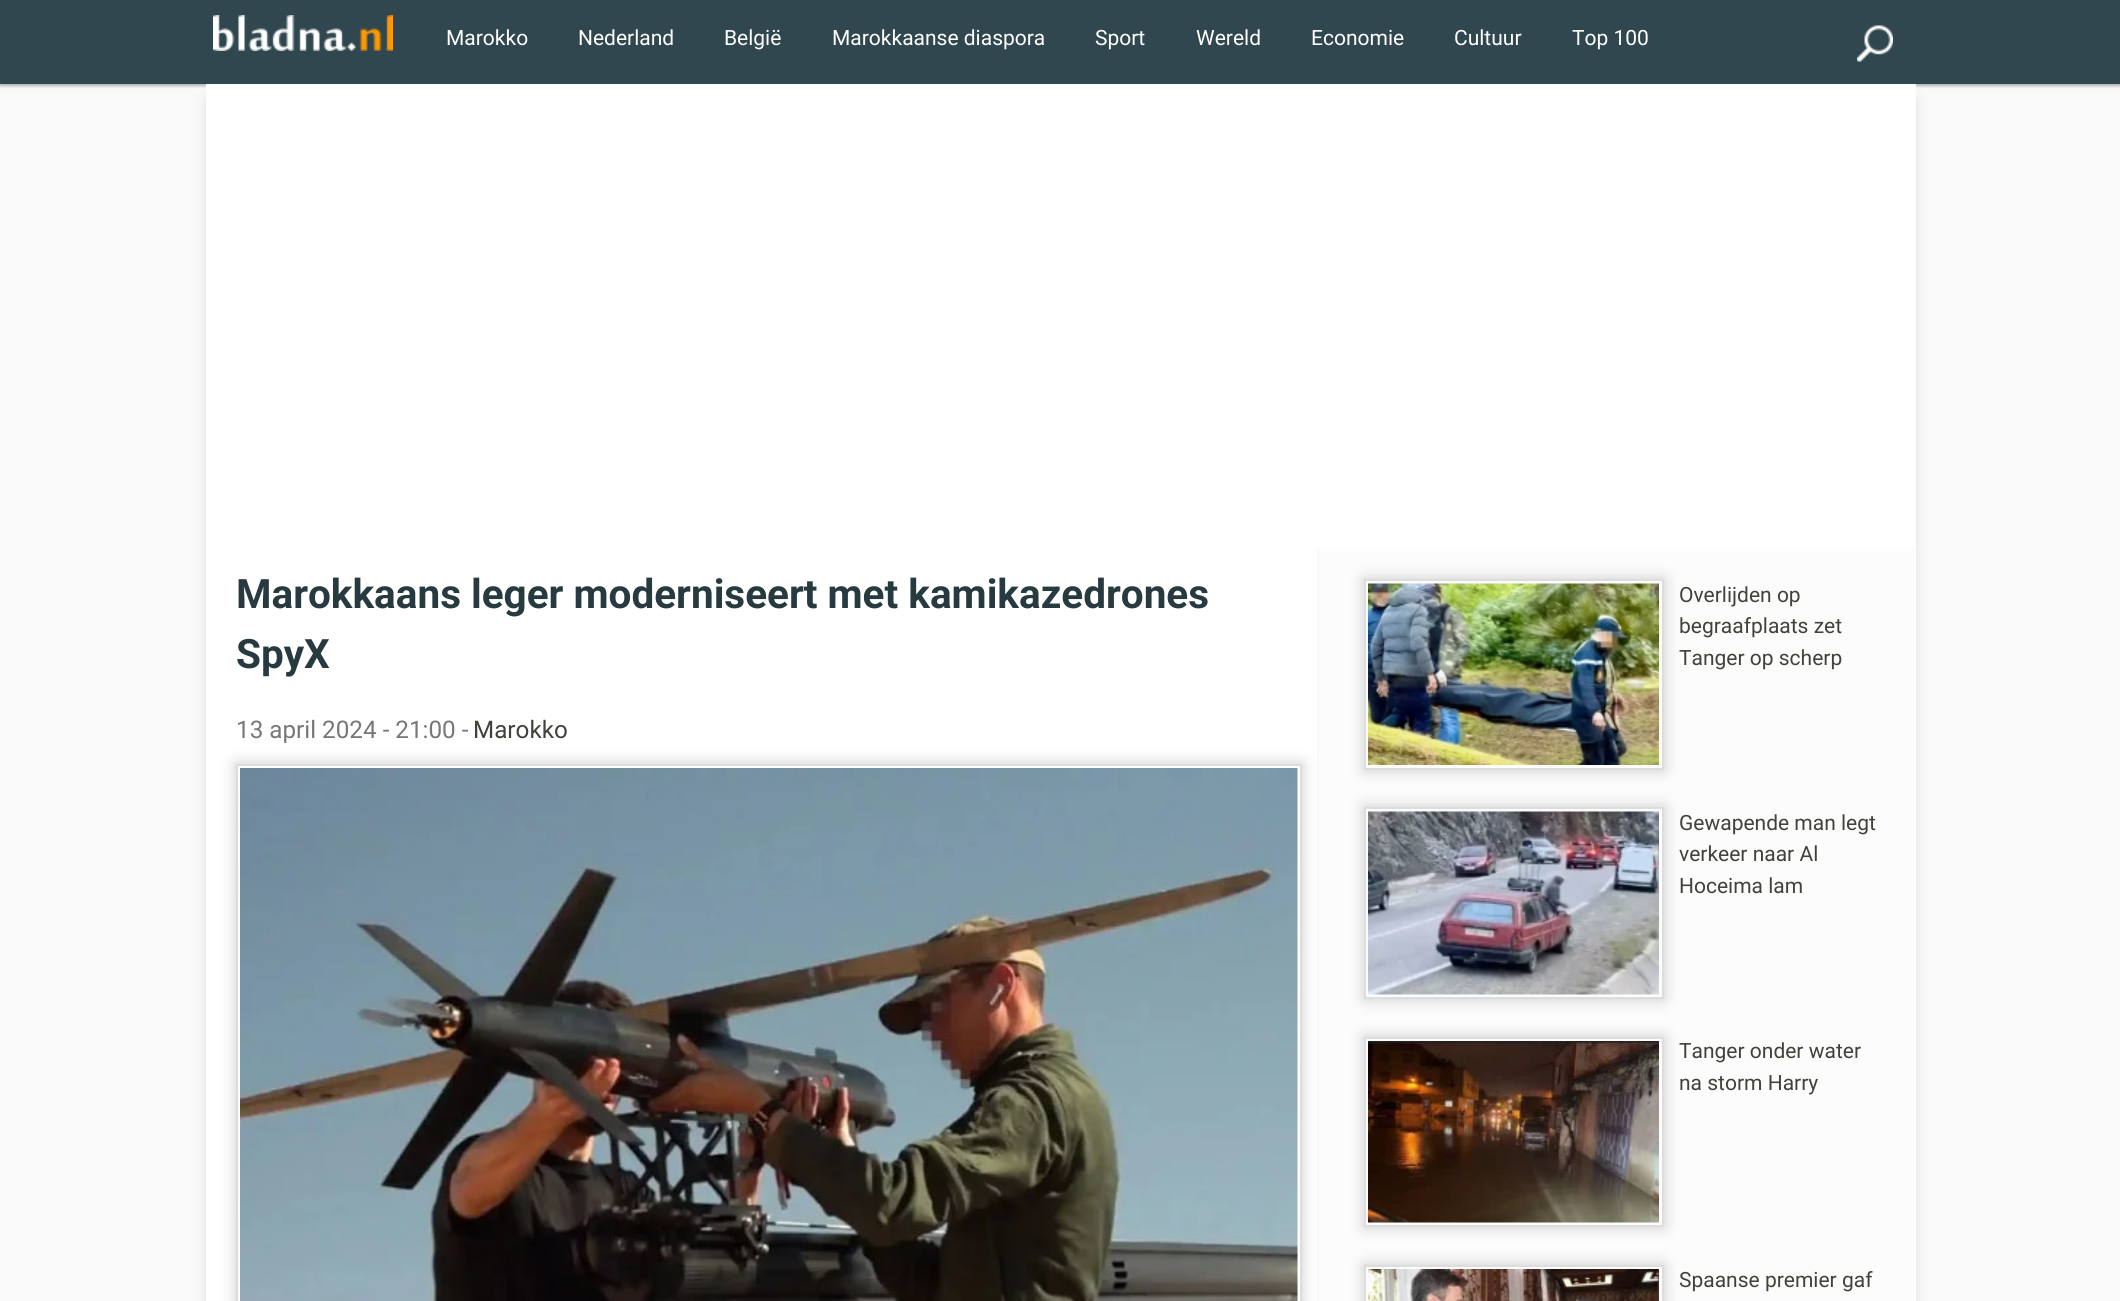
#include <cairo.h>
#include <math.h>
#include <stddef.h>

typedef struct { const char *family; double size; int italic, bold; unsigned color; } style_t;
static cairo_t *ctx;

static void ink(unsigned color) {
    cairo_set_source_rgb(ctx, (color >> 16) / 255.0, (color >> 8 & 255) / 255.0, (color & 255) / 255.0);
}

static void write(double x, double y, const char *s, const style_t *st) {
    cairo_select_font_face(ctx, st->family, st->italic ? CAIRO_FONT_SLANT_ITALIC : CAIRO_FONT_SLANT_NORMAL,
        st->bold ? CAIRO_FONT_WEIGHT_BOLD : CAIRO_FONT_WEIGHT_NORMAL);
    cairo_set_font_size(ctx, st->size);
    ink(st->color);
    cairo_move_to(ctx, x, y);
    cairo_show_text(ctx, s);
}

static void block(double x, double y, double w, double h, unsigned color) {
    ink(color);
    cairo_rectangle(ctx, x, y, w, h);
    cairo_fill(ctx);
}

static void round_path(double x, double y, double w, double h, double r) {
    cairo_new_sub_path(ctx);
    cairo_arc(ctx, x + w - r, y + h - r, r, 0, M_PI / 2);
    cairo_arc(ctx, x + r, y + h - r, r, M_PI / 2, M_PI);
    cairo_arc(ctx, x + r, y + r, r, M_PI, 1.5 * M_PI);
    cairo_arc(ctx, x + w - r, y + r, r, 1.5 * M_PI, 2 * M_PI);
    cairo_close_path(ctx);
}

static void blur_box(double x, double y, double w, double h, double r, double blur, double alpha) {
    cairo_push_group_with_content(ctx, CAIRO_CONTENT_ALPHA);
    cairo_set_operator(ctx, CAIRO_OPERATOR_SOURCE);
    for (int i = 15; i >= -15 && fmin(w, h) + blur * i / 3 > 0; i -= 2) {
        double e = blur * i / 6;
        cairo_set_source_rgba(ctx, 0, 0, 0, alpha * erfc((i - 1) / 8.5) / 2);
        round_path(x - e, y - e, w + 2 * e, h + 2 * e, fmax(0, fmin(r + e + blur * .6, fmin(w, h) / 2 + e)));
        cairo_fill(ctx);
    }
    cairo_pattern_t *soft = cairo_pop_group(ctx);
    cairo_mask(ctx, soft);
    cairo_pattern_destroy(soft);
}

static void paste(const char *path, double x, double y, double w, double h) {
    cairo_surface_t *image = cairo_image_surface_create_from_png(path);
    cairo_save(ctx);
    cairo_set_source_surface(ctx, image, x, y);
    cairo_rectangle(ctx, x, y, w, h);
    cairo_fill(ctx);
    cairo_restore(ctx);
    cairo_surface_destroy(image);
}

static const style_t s1 = {"Roboto", 21, 0, 0, 0xffffff};
static const style_t s2 = {"Roboto", 40.5, 0, 1, 0x273a40};
static const style_t s3 = {"Roboto", 24.25, 0, 0, 0x777777};
static const style_t s4 = {"Roboto", 24.25, 0, 0, 0x42423a};
static const style_t s5 = {"Roboto", 21, 0, 0, 0x42423a};

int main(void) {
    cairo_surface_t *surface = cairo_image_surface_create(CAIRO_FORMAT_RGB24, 2120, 1301);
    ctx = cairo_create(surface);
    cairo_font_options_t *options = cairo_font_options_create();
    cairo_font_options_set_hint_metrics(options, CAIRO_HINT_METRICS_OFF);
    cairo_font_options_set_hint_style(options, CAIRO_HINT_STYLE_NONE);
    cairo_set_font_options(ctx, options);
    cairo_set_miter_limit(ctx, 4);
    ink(0xf9f9f9);
    cairo_paint(ctx);
    ink(0x000000);
    blur_box(0, 2, 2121, 84, 0, 1.5, 0.3);
    block(0, 0, 2120, 84, 0x30474f);
    paste("pic1.png", 213, 15, 180, 36);
    write(446, 45, "Marokko", &s1);
    write(578, 45, "Nederland", &s1);
    write(724, 45, "België", &s1);
    write(832, 45, "Marokkaanse diaspora", &s1);
    write(1095, 45, "Sport", &s1);
    write(1196, 45, "Wereld", &s1);
    write(1311, 45, "Economie", &s1);
    write(1454, 45, "Cultuur", &s1);
    write(1572, 45, "Top 100", &s1);
    paste("pic2.png", 1857, 25, 36, 37);
    ink(0xcccccc);
    blur_box(209, 99, 1680, 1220, 0, 6, 1);
    blur_box(233, 99, 1680, 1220, 0, 6, 1);
    block(206, 84, 1710, 1217, 0xffffff);
    write(236, 608, "Marokkaans leger moderniseert met kamikazedrones", &s2);
    write(236, 668, "SpyX", &s2);
    write(236, 738, "13 april 2024 - 21:00 -", &s3);
    write(473, 738, "Marokko", &s4);
    block(1319, 549, 597, 752, 0xfcfcfc);
    block(1317, 549, 2, 752, 0xf9f9f9);
    cairo_save(ctx);
    cairo_set_fill_rule(ctx, CAIRO_FILL_RULE_EVEN_ODD);
    cairo_new_path(ctx);
    cairo_move_to(ctx, 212, 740);
    cairo_line_to(ctx, 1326, 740);
    cairo_line_to(ctx, 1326, 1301);
    cairo_line_to(ctx, 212, 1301);
    cairo_close_path(ctx);
    cairo_move_to(ctx, 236, 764);
    cairo_line_to(ctx, 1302, 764);
    cairo_line_to(ctx, 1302, 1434);
    cairo_line_to(ctx, 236, 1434);
    cairo_close_path(ctx);
    cairo_clip(ctx);
    ink(0xcccccc);
    blur_box(236, 764, 1066, 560, 0, 7.5, 1);
    cairo_restore(ctx);
    cairo_rectangle(ctx, 237, 765, 1064, 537);
    ink(0xdddddd);
    cairo_stroke(ctx);
    paste("pic3.png", 240, 768, 1058, 533);
    cairo_save(ctx);
    cairo_set_fill_rule(ctx, CAIRO_FILL_RULE_EVEN_ODD);
    cairo_new_path(ctx);
    cairo_move_to(ctx, 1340, 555);
    cairo_line_to(ctx, 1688, 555);
    cairo_line_to(ctx, 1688, 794);
    cairo_line_to(ctx, 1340, 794);
    cairo_close_path(ctx);
    cairo_move_to(ctx, 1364, 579);
    cairo_line_to(ctx, 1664, 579);
    cairo_line_to(ctx, 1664, 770);
    cairo_line_to(ctx, 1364, 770);
    cairo_close_path(ctx);
    cairo_clip(ctx);
    ink(0xcccccc);
    blur_box(1364, 579, 300, 191, 0, 7.5, 1);
    cairo_restore(ctx);
    cairo_rectangle(ctx, 1365, 580, 298, 189);
    cairo_stroke(ctx);
    paste("pic4.png", 1368, 583, 291, 182);
    write(1679, 602, "Overlijden op", &s5);
    write(1679, 633, "begraafplaats zet", &s5);
    write(1679, 665, "Tanger op scherp", &s5);
    cairo_save(ctx);
    cairo_set_fill_rule(ctx, CAIRO_FILL_RULE_EVEN_ODD);
    cairo_new_path(ctx);
    cairo_move_to(ctx, 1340, 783);
    cairo_line_to(ctx, 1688, 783);
    cairo_line_to(ctx, 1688, 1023);
    cairo_line_to(ctx, 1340, 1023);
    cairo_close_path(ctx);
    cairo_move_to(ctx, 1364, 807);
    cairo_line_to(ctx, 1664, 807);
    cairo_line_to(ctx, 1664, 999);
    cairo_line_to(ctx, 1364, 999);
    cairo_close_path(ctx);
    cairo_clip(ctx);
    ink(0xcccccc);
    blur_box(1364, 807, 300, 192, 0, 7.5, 1);
    cairo_restore(ctx);
    cairo_rectangle(ctx, 1365, 808, 298, 190);
    ink(0xdddddd);
    cairo_stroke(ctx);
    paste("pic5.png", 1368, 811, 291, 184);
    write(1679, 830, "Gewapende man legt", &s5);
    write(1679, 861, "verkeer naar Al", &s5);
    write(1679, 893, "Hoceima lam", &s5);
    cairo_save(ctx);
    cairo_set_fill_rule(ctx, CAIRO_FILL_RULE_EVEN_ODD);
    cairo_new_path(ctx);
    cairo_move_to(ctx, 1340, 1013);
    cairo_line_to(ctx, 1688, 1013);
    cairo_line_to(ctx, 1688, 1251);
    cairo_line_to(ctx, 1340, 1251);
    cairo_close_path(ctx);
    cairo_move_to(ctx, 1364, 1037);
    cairo_line_to(ctx, 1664, 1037);
    cairo_line_to(ctx, 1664, 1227);
    cairo_line_to(ctx, 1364, 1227);
    cairo_close_path(ctx);
    cairo_clip(ctx);
    ink(0xcccccc);
    blur_box(1364, 1037, 300, 190, 0, 7.5, 1);
    cairo_restore(ctx);
    cairo_rectangle(ctx, 1365, 1038, 298, 188);
    ink(0xdddddd);
    cairo_stroke(ctx);
    paste("pic6.png", 1368, 1041, 291, 182);
    write(1679, 1058, "Tanger onder water", &s5);
    write(1679, 1090, "na storm Harry", &s5);
    cairo_save(ctx);
    cairo_set_fill_rule(ctx, CAIRO_FILL_RULE_EVEN_ODD);
    cairo_new_path(ctx);
    cairo_move_to(ctx, 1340, 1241);
    cairo_line_to(ctx, 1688, 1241);
    cairo_line_to(ctx, 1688, 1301);
    cairo_line_to(ctx, 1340, 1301);
    cairo_close_path(ctx);
    cairo_move_to(ctx, 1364, 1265);
    cairo_line_to(ctx, 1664, 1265);
    cairo_line_to(ctx, 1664, 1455);
    cairo_line_to(ctx, 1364, 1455);
    cairo_close_path(ctx);
    cairo_clip(ctx);
    ink(0xcccccc);
    blur_box(1364, 1265, 300, 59, 0, 7.5, 1);
    cairo_restore(ctx);
    cairo_rectangle(ctx, 1365, 1266, 298, 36);
    ink(0xdddddd);
    cairo_stroke(ctx);
    paste("pic7.png", 1368, 1269, 291, 32);
    write(1679, 1287, "Spaanse premier gaf", &s5);
    cairo_surface_write_to_png(surface, "screenshot.png");
    cairo_font_options_destroy(options);
    cairo_destroy(ctx);
    cairo_surface_destroy(surface);
    return 0;
}
